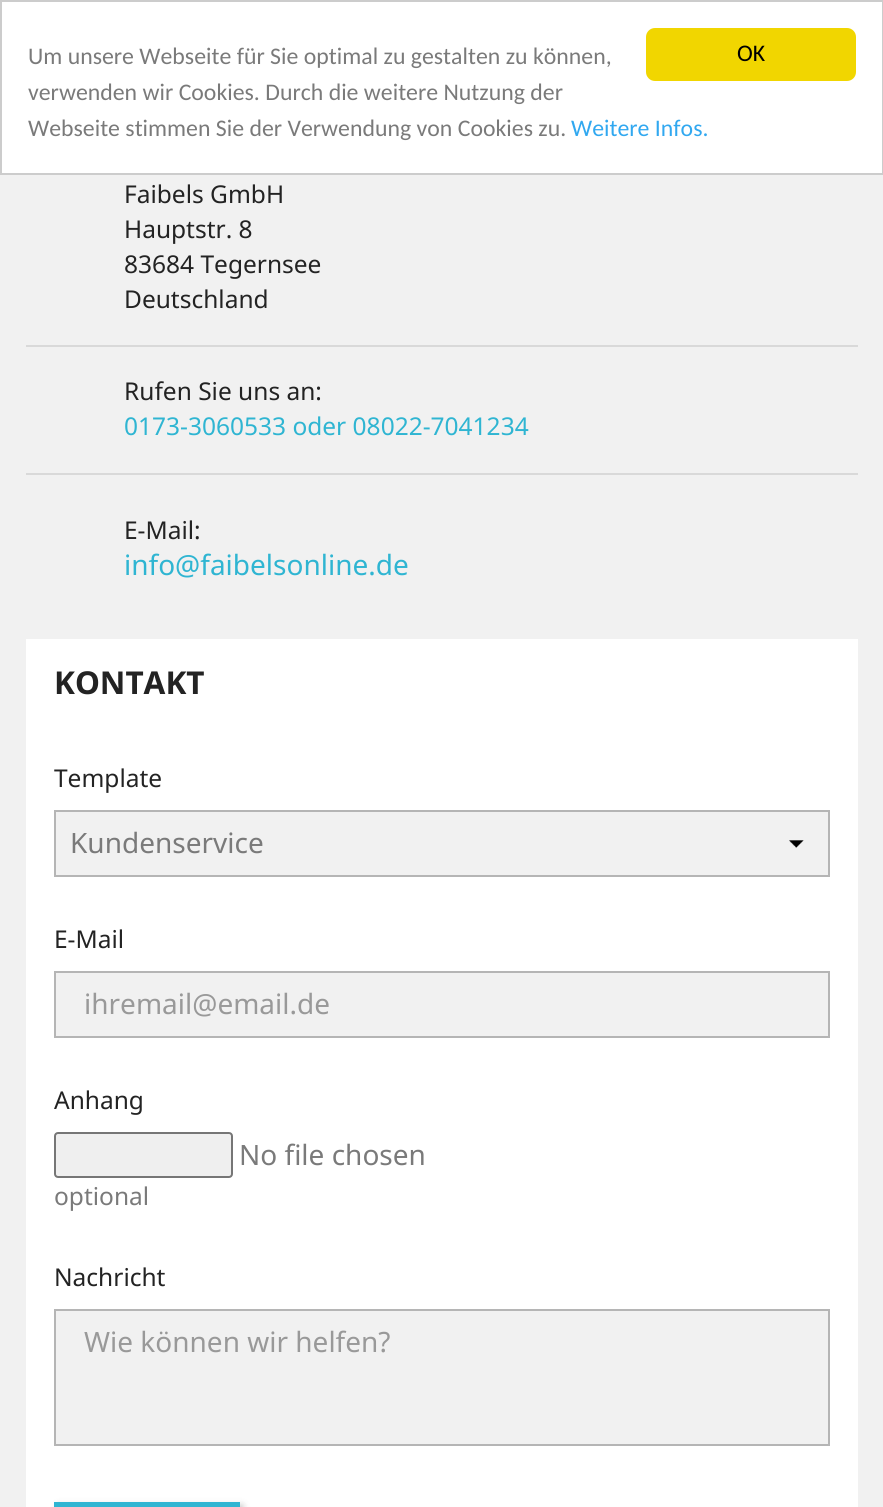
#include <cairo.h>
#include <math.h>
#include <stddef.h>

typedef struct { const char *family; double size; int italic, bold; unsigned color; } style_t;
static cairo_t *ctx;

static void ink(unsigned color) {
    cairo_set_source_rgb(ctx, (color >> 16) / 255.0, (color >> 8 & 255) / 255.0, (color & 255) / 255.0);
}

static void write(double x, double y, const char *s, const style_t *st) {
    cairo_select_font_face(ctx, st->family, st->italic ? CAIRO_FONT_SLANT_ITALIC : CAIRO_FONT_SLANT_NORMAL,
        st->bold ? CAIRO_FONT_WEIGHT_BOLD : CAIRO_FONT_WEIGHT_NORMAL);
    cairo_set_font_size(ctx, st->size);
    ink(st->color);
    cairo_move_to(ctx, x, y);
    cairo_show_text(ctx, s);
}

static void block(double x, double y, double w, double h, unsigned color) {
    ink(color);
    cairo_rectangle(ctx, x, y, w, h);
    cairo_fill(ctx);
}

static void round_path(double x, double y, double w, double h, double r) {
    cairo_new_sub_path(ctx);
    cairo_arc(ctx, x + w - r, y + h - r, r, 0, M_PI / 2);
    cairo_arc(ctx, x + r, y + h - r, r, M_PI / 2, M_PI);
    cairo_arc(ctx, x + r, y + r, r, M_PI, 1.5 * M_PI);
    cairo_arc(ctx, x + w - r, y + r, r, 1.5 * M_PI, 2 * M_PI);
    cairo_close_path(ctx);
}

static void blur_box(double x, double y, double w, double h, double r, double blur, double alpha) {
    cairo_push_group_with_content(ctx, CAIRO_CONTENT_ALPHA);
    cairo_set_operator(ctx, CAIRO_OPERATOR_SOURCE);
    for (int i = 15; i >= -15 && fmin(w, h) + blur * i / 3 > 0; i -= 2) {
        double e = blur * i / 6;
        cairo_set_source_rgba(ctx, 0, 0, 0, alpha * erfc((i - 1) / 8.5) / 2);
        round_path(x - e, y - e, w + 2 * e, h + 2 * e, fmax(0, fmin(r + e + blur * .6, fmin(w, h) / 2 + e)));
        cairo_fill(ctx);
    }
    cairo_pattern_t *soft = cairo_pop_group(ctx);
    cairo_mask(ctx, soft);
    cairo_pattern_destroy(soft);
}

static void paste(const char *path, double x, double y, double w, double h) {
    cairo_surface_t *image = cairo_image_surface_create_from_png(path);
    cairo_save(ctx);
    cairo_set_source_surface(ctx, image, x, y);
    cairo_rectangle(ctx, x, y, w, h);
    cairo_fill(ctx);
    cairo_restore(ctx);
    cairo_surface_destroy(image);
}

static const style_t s1 = {"Carlito", 23.8, 0, 0, 0x7a7a7a};
static const style_t s2 = {"Carlito", 23.8, 0, 0, 0x31a8f0};
static const style_t s3 = {"Carlito", 23.8, 0, 0, 0x000000};
static const style_t s4 = {"Noto Sans", 24.5, 0, 0, 0x232323};
static const style_t s5 = {"Noto Sans", 24.5, 0, 0, 0x2fb5d2};
static const style_t s6 = {"Noto Sans", 28, 0, 0, 0x2fb5d2};
static const style_t s7 = {"Noto Sans", 31.5, 0, 1, 0x232323};
static const style_t s8 = {"Noto Sans", 28, 0, 0, 0x7a7a7a};
static const style_t s9 = {"Noto Sans", 28, 0, 0, 0x999999};
static const style_t s10 = {"Noto Sans", 24.5, 0, 0, 0x7a7a7a};

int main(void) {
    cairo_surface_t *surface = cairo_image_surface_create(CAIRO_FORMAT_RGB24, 883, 1507);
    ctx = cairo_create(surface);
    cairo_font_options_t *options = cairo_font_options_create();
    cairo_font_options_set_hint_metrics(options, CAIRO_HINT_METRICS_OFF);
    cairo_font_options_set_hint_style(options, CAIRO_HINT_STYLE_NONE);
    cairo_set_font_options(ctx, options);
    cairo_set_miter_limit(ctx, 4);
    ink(0xf1f1f1);
    cairo_paint(ctx);
    ink(0xffffff);
    cairo_rectangle(ctx, 1, 1, 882, 173);
    cairo_fill_preserve(ctx);
    ink(0xcccccc);
    cairo_stroke(ctx);
    write(28, 64, "Um unsere Webseite für Sie optimal zu gestalten zu können,", &s1);
    write(28, 100, "verwenden wir Cookies. Durch die weitere Nutzung der", &s1);
    write(28, 136, "Webseite stimmen Sie der Verwendung von Cookies zu.", &s1);
    write(571, 136, "Weitere Infos.", &s2);
    ink(0xf1d600);
    round_path(646, 28, 210, 53, 9);
    cairo_fill(ctx);
    write(737, 61, "OK", &s3);
    write(124, 203, "Faibels GmbH", &s4);
    write(124, 238, "Hauptstr. 8", &s4);
    write(124, 273, "83684 Tegernsee", &s4);
    write(124, 308, "Deutschland", &s4);
    block(26, 345, 832, 2, 0xd9d9d9);
    write(124, 400, "Rufen Sie uns an:", &s4);
    write(124, 435, "0173-3060533 oder 08022-7041234", &s5);
    block(26, 473, 832, 2, 0xd9d9d9);
    write(124, 539, "E-Mail:", &s4);
    write(124, 575, "info@faibelsonline.de", &s6);
    block(26, 639, 832, 868, 0xffffff);
    write(54, 694, "KONTAKT", &s7);
    write(54, 787, "Template", &s4);
    block(56, 812, 772, 63, 0xf1f1f1);
    paste("pic1.png", 789, 840, 15, 8);
    cairo_rectangle(ctx, 55, 811, 774, 65);
    ink(0xb5b5b5);
    cairo_stroke(ctx);
    write(70, 853, "Kundenservice", &s8);
    write(54, 948, "E-Mail", &s4);
    ink(0xf1f1f1);
    cairo_rectangle(ctx, 55, 972, 774, 65);
    cairo_fill_preserve(ctx);
    ink(0xb5b5b5);
    cairo_stroke(ctx);
    write(84, 1014, "ihremail@email.de", &s9);
    write(54, 1109, "Anhang", &s4);
    ink(0xefefef);
    round_path(55, 1133, 177, 44, 3);
    cairo_fill_preserve(ctx);
    ink(0x767676);
    cairo_stroke(ctx);
    write(239, 1165, "No file chosen", &s8);
    write(54, 1205, "optional", &s10);
    write(54, 1286, "Nachricht", &s4);
    ink(0xf1f1f1);
    cairo_rectangle(ctx, 55, 1310, 774, 135);
    cairo_fill_preserve(ctx);
    ink(0xb5b5b5);
    cairo_stroke(ctx);
    write(84, 1352, "Wie können wir helfen?", &s9);
    ink(0x000000);
    blur_box(58, 1505, 185, 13, 0, 3.5, 0.2);
    block(54, 1502, 186, 5, 0x2fb5d2);
    cairo_surface_write_to_png(surface, "screenshot.png");
    cairo_font_options_destroy(options);
    cairo_destroy(ctx);
    cairo_surface_destroy(surface);
    return 0;
}
